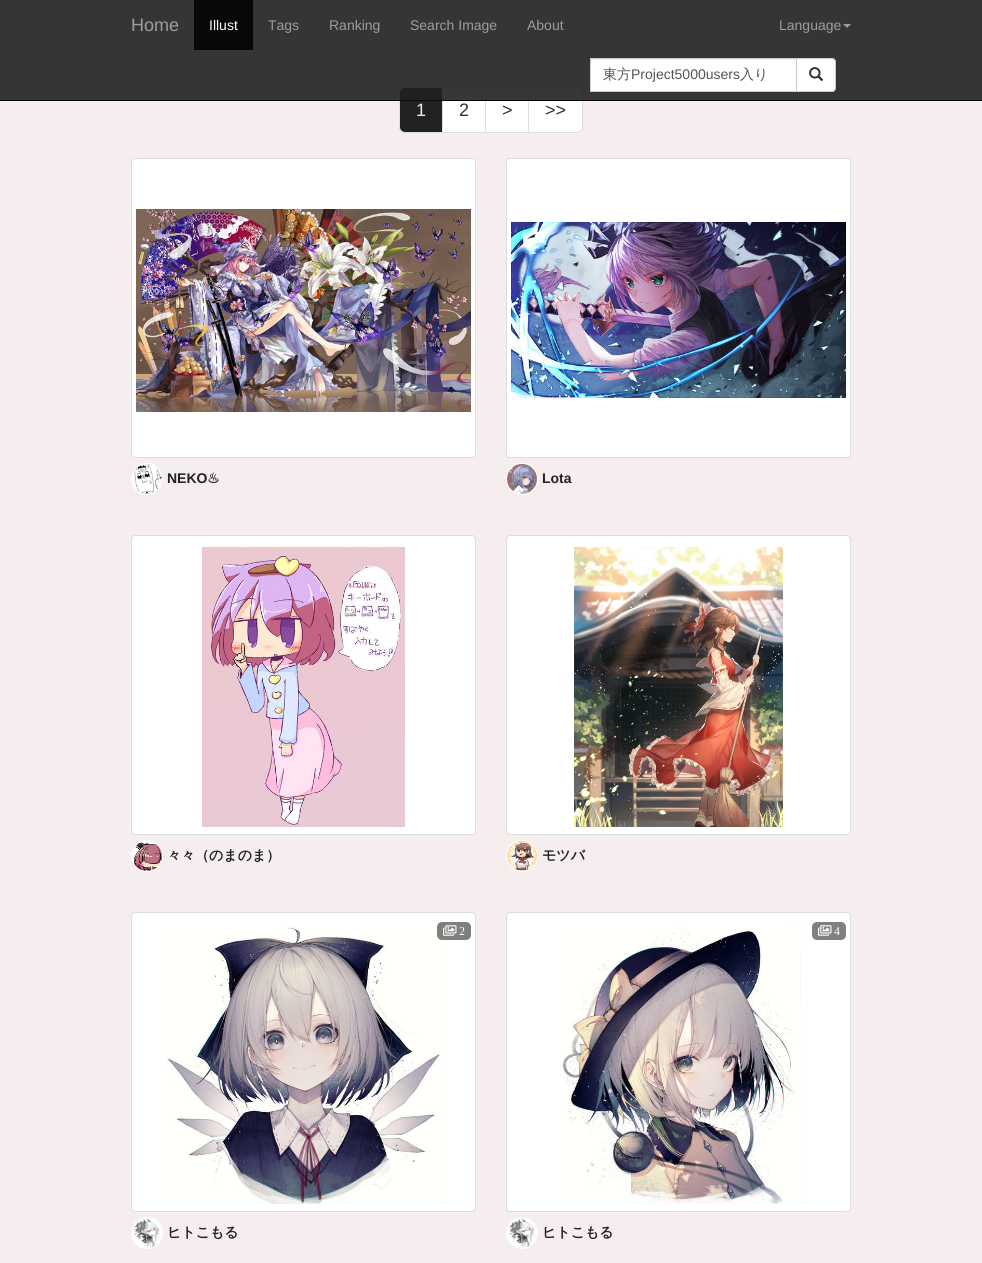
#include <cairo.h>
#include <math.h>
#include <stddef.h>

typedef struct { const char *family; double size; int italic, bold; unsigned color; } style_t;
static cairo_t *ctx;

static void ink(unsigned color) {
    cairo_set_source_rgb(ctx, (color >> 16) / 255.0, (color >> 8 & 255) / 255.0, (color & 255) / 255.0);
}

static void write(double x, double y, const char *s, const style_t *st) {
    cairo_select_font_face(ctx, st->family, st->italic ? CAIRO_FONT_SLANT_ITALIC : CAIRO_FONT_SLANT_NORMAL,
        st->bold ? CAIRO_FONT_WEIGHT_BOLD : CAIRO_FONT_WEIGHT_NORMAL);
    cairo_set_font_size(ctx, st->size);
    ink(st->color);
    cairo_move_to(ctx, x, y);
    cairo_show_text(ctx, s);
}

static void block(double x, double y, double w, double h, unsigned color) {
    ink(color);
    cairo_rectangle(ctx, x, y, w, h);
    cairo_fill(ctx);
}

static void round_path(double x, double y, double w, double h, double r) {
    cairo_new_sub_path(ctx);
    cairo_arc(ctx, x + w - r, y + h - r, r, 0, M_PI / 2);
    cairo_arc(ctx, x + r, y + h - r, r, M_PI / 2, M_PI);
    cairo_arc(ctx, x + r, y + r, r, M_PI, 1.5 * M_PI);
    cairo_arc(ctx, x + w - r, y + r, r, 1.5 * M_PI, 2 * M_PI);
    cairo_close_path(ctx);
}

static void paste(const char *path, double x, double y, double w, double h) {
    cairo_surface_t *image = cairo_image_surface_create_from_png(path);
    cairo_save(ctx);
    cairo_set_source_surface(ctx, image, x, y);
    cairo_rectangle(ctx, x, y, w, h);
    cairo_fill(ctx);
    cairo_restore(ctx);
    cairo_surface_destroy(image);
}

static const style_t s1 = {"Liberation Sans", 18, 0, 0, 0x9d9d9d};
static const style_t s2 = {"Liberation Sans", 14, 0, 0, 0xffffff};
static const style_t s3 = {"Liberation Sans", 14, 0, 0, 0x9d9d9d};
static const style_t s4 = {"WenQuanYi Zen Hei Medium", 14, 0, 0, 0x555555};
static const style_t s5 = {"Liberation Sans", 14, 0, 0, 0x555555};
static const style_t s6 = {"Liberation Sans", 18, 0, 0, 0xeeeeee};
static const style_t s7 = {"Liberation Sans", 18, 0, 0, 0x333333};
static const style_t s8 = {"Liberation Sans", 14, 0, 1, 0x222222};
static const style_t s9 = {"DejaVu Sans", 14, 0, 1, 0x222222};
static const style_t s10 = {"WenQuanYi Zen Hei", 14, 0, 1, 0x222222};
static const style_t s11 = {"Liberation Serif", 12, 0, 0, 0xffffff};

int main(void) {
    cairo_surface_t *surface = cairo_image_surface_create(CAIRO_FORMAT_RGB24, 982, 1263);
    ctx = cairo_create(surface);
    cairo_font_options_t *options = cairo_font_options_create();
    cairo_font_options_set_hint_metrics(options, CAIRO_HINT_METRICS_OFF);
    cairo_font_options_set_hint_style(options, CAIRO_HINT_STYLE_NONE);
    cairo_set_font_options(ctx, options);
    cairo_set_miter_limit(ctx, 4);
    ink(0xf5edee);
    cairo_paint(ctx);
    ink(0x222222);
    cairo_new_path(ctx);
    cairo_move_to(ctx, 405, 87.5);
    cairo_line_to(ctx, 442.5, 87.5);
    cairo_line_to(ctx, 442.5, 132.5);
    cairo_line_to(ctx, 405, 132.5);
    cairo_curve_to(ctx, 402, 132.5, 399.5, 130, 399.5, 127);
    cairo_line_to(ctx, 399.5, 93);
    cairo_curve_to(ctx, 399.5, 90, 402, 87.5, 405, 87.5);
    cairo_close_path(ctx);
    cairo_fill_preserve(ctx);
    ink(0xdddddd);
    cairo_set_line_width(ctx, 1);
    cairo_stroke(ctx);
    ink(0xffffff);
    cairo_rectangle(ctx, 442.5, 87.5, 43, 45);
    cairo_fill_preserve(ctx);
    ink(0xdddddd);
    cairo_stroke(ctx);
    ink(0xffffff);
    cairo_rectangle(ctx, 485.5, 87.5, 43, 45);
    cairo_fill_preserve(ctx);
    ink(0xdddddd);
    cairo_stroke(ctx);
    ink(0xffffff);
    cairo_new_path(ctx);
    cairo_move_to(ctx, 528.5, 87.5);
    cairo_line_to(ctx, 577, 87.5);
    cairo_curve_to(ctx, 580, 87.5, 582.5, 90, 582.5, 93);
    cairo_line_to(ctx, 582.5, 127);
    cairo_curve_to(ctx, 582.5, 130, 580, 132.5, 577, 132.5);
    cairo_line_to(ctx, 528.5, 132.5);
    cairo_close_path(ctx);
    cairo_fill_preserve(ctx);
    ink(0xdddddd);
    cairo_stroke(ctx);
    cairo_set_source_rgba(ctx, 0.133, 0.133, 0.133, 0.9);
    cairo_rectangle(ctx, 0, 0, 982, 100);
    cairo_fill(ctx);
    block(0, 100, 982, 1, 0x080808);
    write(131, 31, "Home", &s1);
    block(194, 0, 59, 50, 0x080808);
    write(209, 30, "Illust", &s2);
    write(268, 30, "Tags", &s3);
    write(329, 30, "Ranking", &s3);
    write(410, 30, "Search Image", &s3);
    write(527, 30, "About", &s3);
    write(779, 30, "Language", &s3);
    cairo_new_path(ctx);
    cairo_move_to(ctx, 843, 24);
    cairo_line_to(ctx, 851, 24);
    cairo_line_to(ctx, 847, 28);
    cairo_close_path(ctx);
    cairo_fill(ctx);
    block(591, 60, 205, 31, 0xffffff);
    block(591, 59, 205, 1, 0xececec);
    cairo_rectangle(ctx, 590.5, 58.5, 206, 33);
    ink(0xcccccc);
    cairo_stroke(ctx);
    write(603, 79, "東方", &s4);
    write(631, 79, "Project5000users", &s5);
    write(740, 79, "入り", &s4);
    ink(0xffffff);
    cairo_new_path(ctx);
    cairo_move_to(ctx, 796.5, 58.5);
    cairo_line_to(ctx, 832, 58.5);
    cairo_curve_to(ctx, 834, 58.5, 835.5, 60, 835.5, 62);
    cairo_line_to(ctx, 835.5, 88);
    cairo_curve_to(ctx, 835.5, 90, 834, 91.5, 832, 91.5);
    cairo_line_to(ctx, 796.5, 91.5);
    cairo_close_path(ctx);
    cairo_fill_preserve(ctx);
    ink(0xcccccc);
    cairo_stroke(ctx);
    paste("pic1.png", 809, 67, 15, 14);
    write(416, 116, "1", &s6);
    write(459, 116, "2", &s7);
    write(502, 116, ">", &s7);
    write(545, 116, ">>", &s7);
    ink(0xffffff);
    round_path(131.5, 158.5, 344, 299, 3.5);
    cairo_fill_preserve(ctx);
    ink(0xdddddd);
    cairo_stroke(ctx);
    paste("pic2.png", 136, 209, 335, 203);
    cairo_arc(ctx, 147, 479, 15.5, 0, 2 * M_PI);
    ink(0xffffff);
    cairo_stroke(ctx);
    paste("pic3.png", 132, 464, 30, 30);
    write(167, 483, "NEKO", &s8);
    write(207, 483, "♨", &s9);
    ink(0xffffff);
    round_path(506.5, 158.5, 344, 299, 3.5);
    cairo_fill_preserve(ctx);
    ink(0xdddddd);
    cairo_stroke(ctx);
    paste("pic4.png", 511, 222, 335, 176);
    cairo_arc(ctx, 522, 479, 15.5, 0, 2 * M_PI);
    ink(0xffffff);
    cairo_stroke(ctx);
    paste("pic5.png", 507, 464, 30, 30);
    write(542, 483, "Lota", &s8);
    ink(0xffffff);
    round_path(131.5, 535.5, 344, 299, 3.5);
    cairo_fill_preserve(ctx);
    ink(0xdddddd);
    cairo_stroke(ctx);
    paste("pic6.png", 202, 547, 203, 280);
    cairo_arc(ctx, 147, 856, 15.5, 0, 2 * M_PI);
    ink(0xffffff);
    cairo_stroke(ctx);
    paste("pic7.png", 132, 841, 30, 30);
    write(167, 860, "々々（のまのま）", &s10);
    ink(0xffffff);
    round_path(506.5, 535.5, 344, 299, 3.5);
    cairo_fill_preserve(ctx);
    ink(0xdddddd);
    cairo_stroke(ctx);
    paste("pic8.png", 574, 547, 209, 280);
    cairo_arc(ctx, 522, 856, 15.5, 0, 2 * M_PI);
    ink(0xffffff);
    cairo_stroke(ctx);
    paste("pic9.png", 507, 841, 30, 30);
    write(542, 860, "モツバ", &s10);
    ink(0xffffff);
    round_path(131.5, 912.5, 344, 299, 3.5);
    cairo_fill_preserve(ctx);
    ink(0xdddddd);
    cairo_stroke(ctx);
    paste("pic10.png", 166, 924, 275, 280);
    cairo_set_source_rgba(ctx, 0, 0, 0, 0.5);
    round_path(437, 922, 34, 18, 5);
    cairo_fill(ctx);
    paste("pic11.png", 443, 925, 14, 11);
    write(459, 935, "2", &s11);
    cairo_new_path(ctx);
    cairo_arc(ctx, 147, 1233, 15.5, 0, 2 * M_PI);
    cairo_stroke(ctx);
    paste("pic12.png", 132, 1218, 30, 30);
    write(167, 1237, "ヒトこもる", &s10);
    ink(0xffffff);
    round_path(506.5, 912.5, 344, 299, 3.5);
    cairo_fill_preserve(ctx);
    ink(0xdddddd);
    cairo_stroke(ctx);
    paste("pic13.png", 560, 924, 241, 280);
    ink(0x808080);
    round_path(812, 922, 34, 18, 5);
    cairo_fill(ctx);
    paste("pic14.png", 818, 925, 14, 11);
    write(834, 935, "4", &s11);
    cairo_new_path(ctx);
    cairo_arc(ctx, 522, 1233, 15.5, 0, 2 * M_PI);
    cairo_stroke(ctx);
    paste("pic15.png", 507, 1218, 30, 30);
    write(542, 1237, "ヒトこもる", &s10);
    cairo_surface_write_to_png(surface, "screenshot.png");
    cairo_font_options_destroy(options);
    cairo_destroy(ctx);
    cairo_surface_destroy(surface);
    return 0;
}
